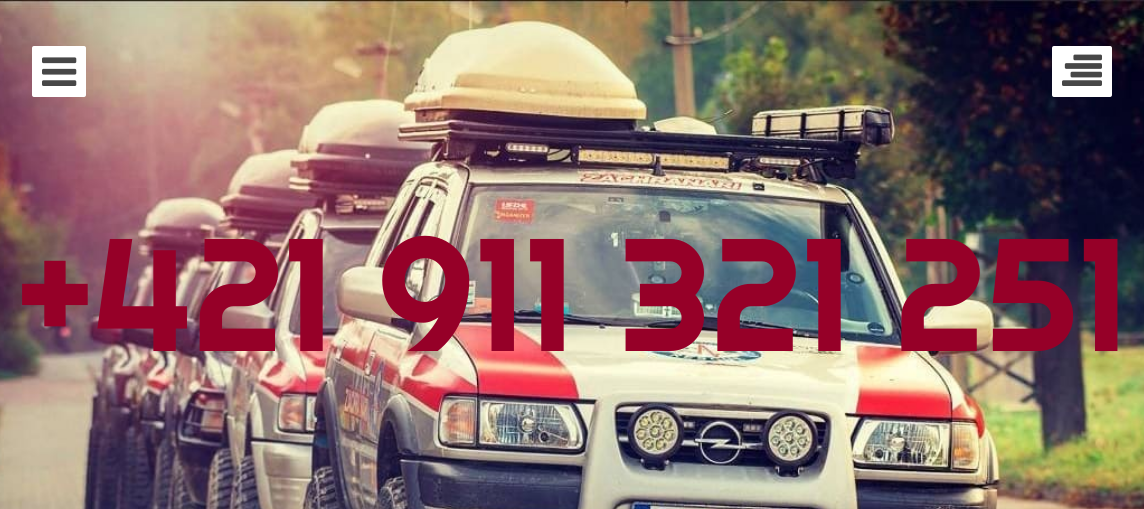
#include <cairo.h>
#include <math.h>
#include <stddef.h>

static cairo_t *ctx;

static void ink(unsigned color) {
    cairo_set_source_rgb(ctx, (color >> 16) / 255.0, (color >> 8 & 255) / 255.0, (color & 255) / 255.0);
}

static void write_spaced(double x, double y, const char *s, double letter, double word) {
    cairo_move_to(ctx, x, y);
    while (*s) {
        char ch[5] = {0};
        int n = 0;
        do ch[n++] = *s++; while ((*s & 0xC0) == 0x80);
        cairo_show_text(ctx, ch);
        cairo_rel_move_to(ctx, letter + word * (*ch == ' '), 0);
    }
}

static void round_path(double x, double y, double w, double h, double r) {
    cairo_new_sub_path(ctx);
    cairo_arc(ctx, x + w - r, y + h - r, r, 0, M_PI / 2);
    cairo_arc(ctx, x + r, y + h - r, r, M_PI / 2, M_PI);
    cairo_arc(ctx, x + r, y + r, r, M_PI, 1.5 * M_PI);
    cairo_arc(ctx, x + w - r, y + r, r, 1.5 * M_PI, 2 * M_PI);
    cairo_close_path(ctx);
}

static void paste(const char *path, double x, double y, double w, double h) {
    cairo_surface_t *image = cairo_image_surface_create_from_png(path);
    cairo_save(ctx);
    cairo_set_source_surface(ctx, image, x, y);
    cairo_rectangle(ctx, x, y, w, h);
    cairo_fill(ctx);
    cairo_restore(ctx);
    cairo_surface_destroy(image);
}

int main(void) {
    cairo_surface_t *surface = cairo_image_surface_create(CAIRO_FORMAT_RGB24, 1144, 509);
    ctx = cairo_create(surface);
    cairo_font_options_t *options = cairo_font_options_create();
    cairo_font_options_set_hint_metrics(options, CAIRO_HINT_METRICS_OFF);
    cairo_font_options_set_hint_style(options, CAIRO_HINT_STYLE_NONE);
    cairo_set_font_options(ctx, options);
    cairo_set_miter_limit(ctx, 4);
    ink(0xffffff);
    cairo_paint(ctx);
    paste("pic3.png", 0, 0, 1144, 509);
    ink(0xffffff);
    round_path(32, 46, 54, 51, 2);
    cairo_fill(ctx);
    paste("pic1.png", 42, 57, 35, 29);
    round_path(1052, 46, 60, 51, 2);
    cairo_fill(ctx);
    paste("pic2.png", 1062, 54, 40, 32);
    cairo_select_font_face(ctx, "Righteous", CAIRO_FONT_SLANT_NORMAL, CAIRO_FONT_WEIGHT_NORMAL);
    cairo_set_font_size(ctx, 160);
    ink(0x960028);
    write_spaced(16, 351, "+421 911 321 251", -1, 0);
    cairo_surface_write_to_png(surface, "screenshot.png");
    cairo_font_options_destroy(options);
    cairo_destroy(ctx);
    cairo_surface_destroy(surface);
    return 0;
}
